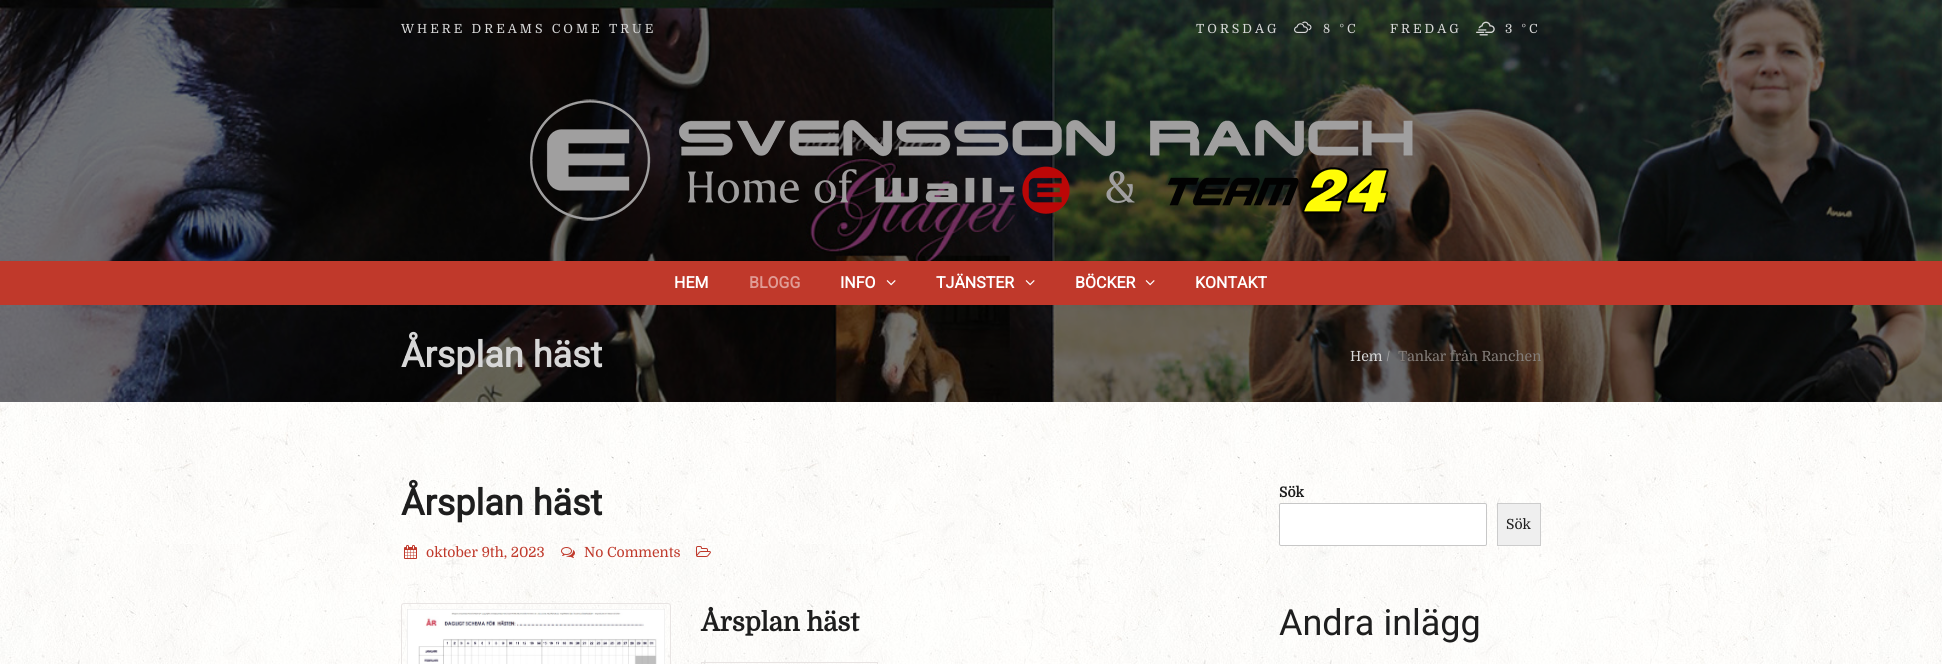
#include <cairo.h>
#include <math.h>
#include <stddef.h>

typedef struct { const char *family; double size; int italic, bold; unsigned color; } style_t;
static cairo_t *ctx;

static void ink(unsigned color) {
    cairo_set_source_rgb(ctx, (color >> 16) / 255.0, (color >> 8 & 255) / 255.0, (color & 255) / 255.0);
}

static void write(double x, double y, const char *s, const style_t *st) {
    cairo_select_font_face(ctx, st->family, st->italic ? CAIRO_FONT_SLANT_ITALIC : CAIRO_FONT_SLANT_NORMAL,
        st->bold ? CAIRO_FONT_WEIGHT_BOLD : CAIRO_FONT_WEIGHT_NORMAL);
    cairo_set_font_size(ctx, st->size);
    ink(st->color);
    cairo_move_to(ctx, x, y);
    cairo_show_text(ctx, s);
}

static void write_spaced(double x, double y, const char *s, double letter, double word) {
    cairo_move_to(ctx, x, y);
    while (*s) {
        char ch[5] = {0};
        int n = 0;
        do ch[n++] = *s++; while ((*s & 0xC0) == 0x80);
        cairo_show_text(ctx, ch);
        cairo_rel_move_to(ctx, letter + word * (*ch == ' '), 0);
    }
}

static void block(double x, double y, double w, double h, unsigned color) {
    ink(color);
    cairo_rectangle(ctx, x, y, w, h);
    cairo_fill(ctx);
}

static void round_path(double x, double y, double w, double h, double r) {
    cairo_new_sub_path(ctx);
    cairo_arc(ctx, x + w - r, y + h - r, r, 0, M_PI / 2);
    cairo_arc(ctx, x + r, y + h - r, r, M_PI / 2, M_PI);
    cairo_arc(ctx, x + r, y + r, r, M_PI, 1.5 * M_PI);
    cairo_arc(ctx, x + w - r, y + r, r, 1.5 * M_PI, 2 * M_PI);
    cairo_close_path(ctx);
}

static void paste(const char *path, double x, double y, double w, double h) {
    cairo_surface_t *image = cairo_image_surface_create_from_png(path);
    cairo_save(ctx);
    cairo_set_source_surface(ctx, image, x, y);
    cairo_rectangle(ctx, x, y, w, h);
    cairo_fill(ctx);
    cairo_restore(ctx);
    cairo_surface_destroy(image);
}

static const style_t s1 = {"Roboto", 16, 0, 1, 0xffffff};
static const style_t s2 = {"Roboto", 16, 0, 1, 0xe09c95};
static const style_t s3 = {"Roboto", 36, 0, 1, 0xd8d8d8};
static const style_t s4 = {"Domine", 14, 0, 0, 0xd8d8d8};
static const style_t s5 = {"Domine", 14, 0, 0, 0xa0a0a2};
static const style_t s6 = {"Domine", 14, 0, 0, 0x837d79};
static const style_t s7 = {"Roboto", 36, 0, 1, 0x1e1e1e};
static const style_t s8 = {"Domine", 14, 0, 0, 0xc0392b};
static const style_t s9 = {"Domine", 26, 0, 1, 0x1e1e1e};
static const style_t s10 = {"Domine", 14, 0, 1, 0x1e1e1e};
static const style_t s11 = {"Domine", 14, 0, 0, 0x1e1e1e};
static const style_t s12 = {"Roboto", 36, 0, 0, 0x1e1e1e};

int main(void) {
    cairo_surface_t *surface = cairo_image_surface_create(CAIRO_FORMAT_RGB24, 1942, 664);
    ctx = cairo_create(surface);
    cairo_font_options_t *options = cairo_font_options_create();
    cairo_font_options_set_hint_metrics(options, CAIRO_HINT_METRICS_OFF);
    cairo_font_options_set_hint_style(options, CAIRO_HINT_STYLE_NONE);
    cairo_set_font_options(ctx, options);
    cairo_set_miter_limit(ctx, 4);
    ink(0xffffff);
    cairo_paint(ctx);
    paste("pic1.png", 0, 402, 1942, 262);
    paste("pic2.png", 0, 0, 1942, 402);
    cairo_select_font_face(ctx, "Domine", CAIRO_FONT_SLANT_NORMAL, CAIRO_FONT_WEIGHT_NORMAL);
    cairo_set_font_size(ctx, 12.6);
    ink(0xd8d8d8);
    write_spaced(401, 33, "WHERE DREAMS COME TRUE", 3, 0);
    write_spaced(1196, 33, "TORSDAG", 3, 0);
    paste("pic3.png", 1294, 21, 18, 12);
    write_spaced(1323, 33, "8 °C", 3, 0);
    write_spaced(1390, 33, "FREDAG", 3, 0);
    paste("pic4.png", 1476, 21, 19, 15);
    write_spaced(1505, 33, "3 °C", 3, 0);
    paste("pic5.png", 530, 99, 883, 122);
    block(0, 261, 1942, 44, 0xc0392b);
    write(674, 288, "HEM", &s1);
    write(749, 288, "BLOGG", &s2);
    write(840, 288, "INFO", &s1);
    paste("pic6.png", 886, 280, 10, 6);
    write(936, 288, "TJÄNSTER", &s1);
    paste("pic6.png", 1025, 280, 10, 6);
    write(1075, 288, "BÖCKER", &s1);
    paste("pic6.png", 1145, 280, 10, 6);
    write(1195, 288, "KONTAKT", &s1);
    write(401, 367, "Årsplan häst", &s3);
    write(1350, 361, "Hem", &s4);
    write(1386, 361, "/", &s5);
    write(1398, 361, "Tankar från Ranchen", &s6);
    write(401, 515, "Årsplan häst", &s7);
    paste("pic7.png", 404, 545, 13, 14);
    write(426, 557, "oktober 9th, 2023", &s8);
    paste("pic8.png", 561, 547, 14, 11);
    write(584, 557, "No Comments", &s8);
    paste("pic9.png", 696, 546, 15, 11);
    round_path(401.5, 603.5, 269, 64, 2.5);
    ink(0xe8e4e3);
    cairo_set_line_width(ctx, 1);
    cairo_stroke(ctx);
    paste("pic10.png", 407, 609, 258, 55);
    write(701, 631, "Årsplan häst", &s9);
    cairo_rectangle(ctx, 701.5, 662.5, 176, 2);
    ink(0xe8e4e3);
    cairo_stroke(ctx);
    write(1279, 497, "Sök", &s10);
    ink(0xffffff);
    round_path(1279.5, 503.5, 207, 42, 1.5);
    cairo_fill_preserve(ctx);
    ink(0xc7c7c7);
    cairo_stroke(ctx);
    ink(0xefefef);
    cairo_rectangle(ctx, 1497.5, 503.5, 43, 42);
    cairo_fill_preserve(ctx);
    ink(0xcccccc);
    cairo_stroke(ctx);
    write(1506, 529, "Sök", &s11);
    write(1279, 635, "Andra inlägg", &s12);
    cairo_surface_write_to_png(surface, "screenshot.png");
    cairo_font_options_destroy(options);
    cairo_destroy(ctx);
    cairo_surface_destroy(surface);
    return 0;
}
